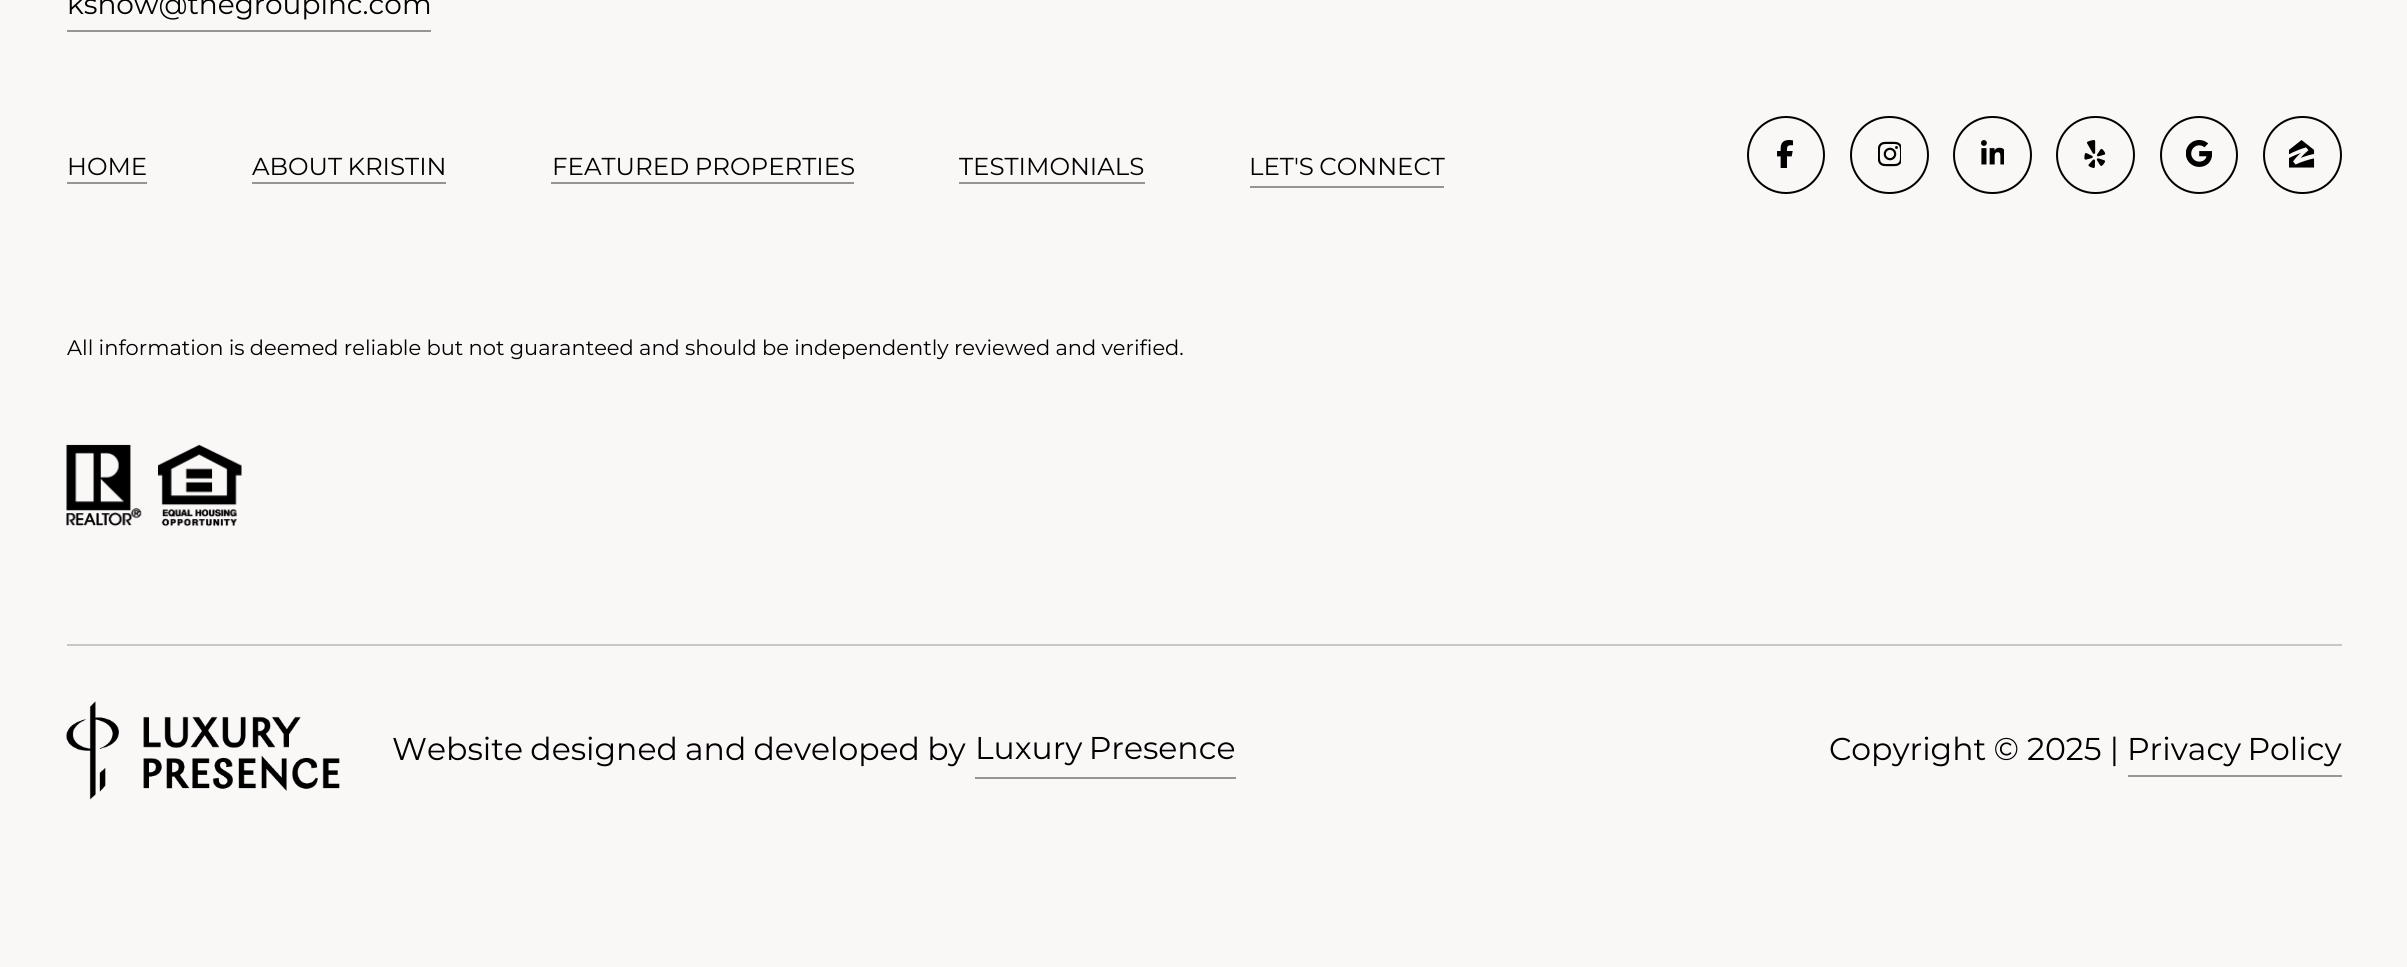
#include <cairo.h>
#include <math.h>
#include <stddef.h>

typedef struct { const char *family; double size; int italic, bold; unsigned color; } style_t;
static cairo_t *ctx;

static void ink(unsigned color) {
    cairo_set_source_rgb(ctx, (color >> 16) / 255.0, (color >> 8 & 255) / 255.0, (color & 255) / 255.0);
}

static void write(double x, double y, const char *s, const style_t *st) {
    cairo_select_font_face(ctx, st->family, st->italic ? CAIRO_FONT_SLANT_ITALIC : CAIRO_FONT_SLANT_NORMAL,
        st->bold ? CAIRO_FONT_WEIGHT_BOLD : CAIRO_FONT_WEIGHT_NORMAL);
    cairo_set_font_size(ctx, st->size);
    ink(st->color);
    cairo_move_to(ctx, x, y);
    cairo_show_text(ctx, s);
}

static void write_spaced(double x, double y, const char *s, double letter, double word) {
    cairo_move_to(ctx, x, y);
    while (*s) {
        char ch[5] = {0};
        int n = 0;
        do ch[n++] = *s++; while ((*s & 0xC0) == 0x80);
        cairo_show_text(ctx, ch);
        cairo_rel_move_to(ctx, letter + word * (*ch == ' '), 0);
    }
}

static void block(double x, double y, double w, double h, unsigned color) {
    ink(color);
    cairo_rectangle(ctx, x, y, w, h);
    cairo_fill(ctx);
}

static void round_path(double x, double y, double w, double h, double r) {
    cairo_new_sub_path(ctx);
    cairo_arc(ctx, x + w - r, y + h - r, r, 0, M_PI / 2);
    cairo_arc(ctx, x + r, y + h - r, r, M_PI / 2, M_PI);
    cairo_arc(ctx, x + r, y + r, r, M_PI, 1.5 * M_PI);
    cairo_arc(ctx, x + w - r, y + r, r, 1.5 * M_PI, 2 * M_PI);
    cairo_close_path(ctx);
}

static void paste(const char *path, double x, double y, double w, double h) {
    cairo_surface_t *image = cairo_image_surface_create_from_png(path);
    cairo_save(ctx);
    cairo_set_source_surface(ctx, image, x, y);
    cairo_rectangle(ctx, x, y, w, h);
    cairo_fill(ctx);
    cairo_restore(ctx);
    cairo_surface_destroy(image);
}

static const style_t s1 = {"Montserrat", 28, 0, 0, 0x000000};
static const style_t s2 = {"Montserrat", 24.5, 0, 0, 0x000000};
static const style_t s3 = {"Montserrat", 31.5, 0, 0, 0x000000};

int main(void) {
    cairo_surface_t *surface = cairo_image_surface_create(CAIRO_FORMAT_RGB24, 2407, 967);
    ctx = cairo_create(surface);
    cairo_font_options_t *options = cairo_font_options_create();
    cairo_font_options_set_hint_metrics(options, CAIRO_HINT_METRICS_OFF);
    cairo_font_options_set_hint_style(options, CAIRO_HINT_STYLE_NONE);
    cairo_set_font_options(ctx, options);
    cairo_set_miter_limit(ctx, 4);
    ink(0xfaf7f7);
    cairo_paint(ctx);
    write(67, 14, "ksnow@thegroupinc.com", &s1);
    block(67, 30, 364, 2, 0x969494);
    write(67, 175, "HOME", &s2);
    block(67, 182, 80, 2, 0x969494);
    ink(0x000000);
    write_spaced(252, 175, "ABOUT KRISTIN", 0, -1);
    block(252, 182, 194, 2, 0x969494);
    ink(0x000000);
    write_spaced(552, 175, "FEATURED PROPERTIES", 0, -1);
    block(551, 182, 303, 2, 0x969494);
    write(959, 175, "TESTIMONIALS", &s2);
    block(959, 182, 186, 2, 0x969494);
    ink(0x000000);
    write_spaced(1249, 175, "LET'S CONNECT", 0, -1);
    block(1250, 186, 194, 2, 0x969494);
    cairo_new_path(ctx);
    cairo_arc(ctx, 1786, 155, 38, 0, 2 * M_PI);
    ink(0x000000);
    cairo_stroke(ctx);
    paste("pic1.png", 1777, 140, 16, 28);
    round_path(1851, 117, 77, 76, 38);
    cairo_stroke(ctx);
    paste("pic2.png", 1878, 141, 23, 26);
    round_path(1954, 117, 77, 76, 38);
    cairo_stroke(ctx);
    paste("pic3.png", 1981, 140, 23, 25);
    round_path(2057, 117, 77, 76, 38);
    cairo_stroke(ctx);
    paste("pic4.png", 2084, 140, 22, 28);
    cairo_arc(ctx, 2199, 155, 38, 0, 2 * M_PI);
    cairo_stroke(ctx);
    paste("pic5.png", 2186, 140, 26, 27);
    round_path(2264, 117, 77, 76, 38);
    cairo_stroke(ctx);
    paste("pic6.png", 2289, 140, 26, 28);
    cairo_set_font_size(ctx, 21);
    write_spaced(67, 355, "All information is deemed reliable but not guaranteed and should be independently reviewed and verified.", 0, -0.25);
    paste("pic7.png", 66, 444, 176, 83);
    block(67, 644, 2275, 2, 0xc8c6c6);
    paste("pic8.png", 66, 701, 274, 99);
    cairo_set_font_size(ctx, 31.5);
    ink(0x000000);
    write_spaced(392, 760, "Website designed and developed by", 0, -1);
    write_spaced(975, 759, "Luxury Presence", 0, -2);
    block(975, 777, 261, 2, 0x969494);
    ink(0x000000);
    write_spaced(1829, 760, "Copyright ©", 0, -1);
    write(2027, 760, "2025 |", &s3);
    write_spaced(2127, 760, "Privacy Policy", 0, -2);
    block(2128, 775, 214, 2, 0x969494);
    cairo_surface_write_to_png(surface, "screenshot.png");
    cairo_font_options_destroy(options);
    cairo_destroy(ctx);
    cairo_surface_destroy(surface);
    return 0;
}
